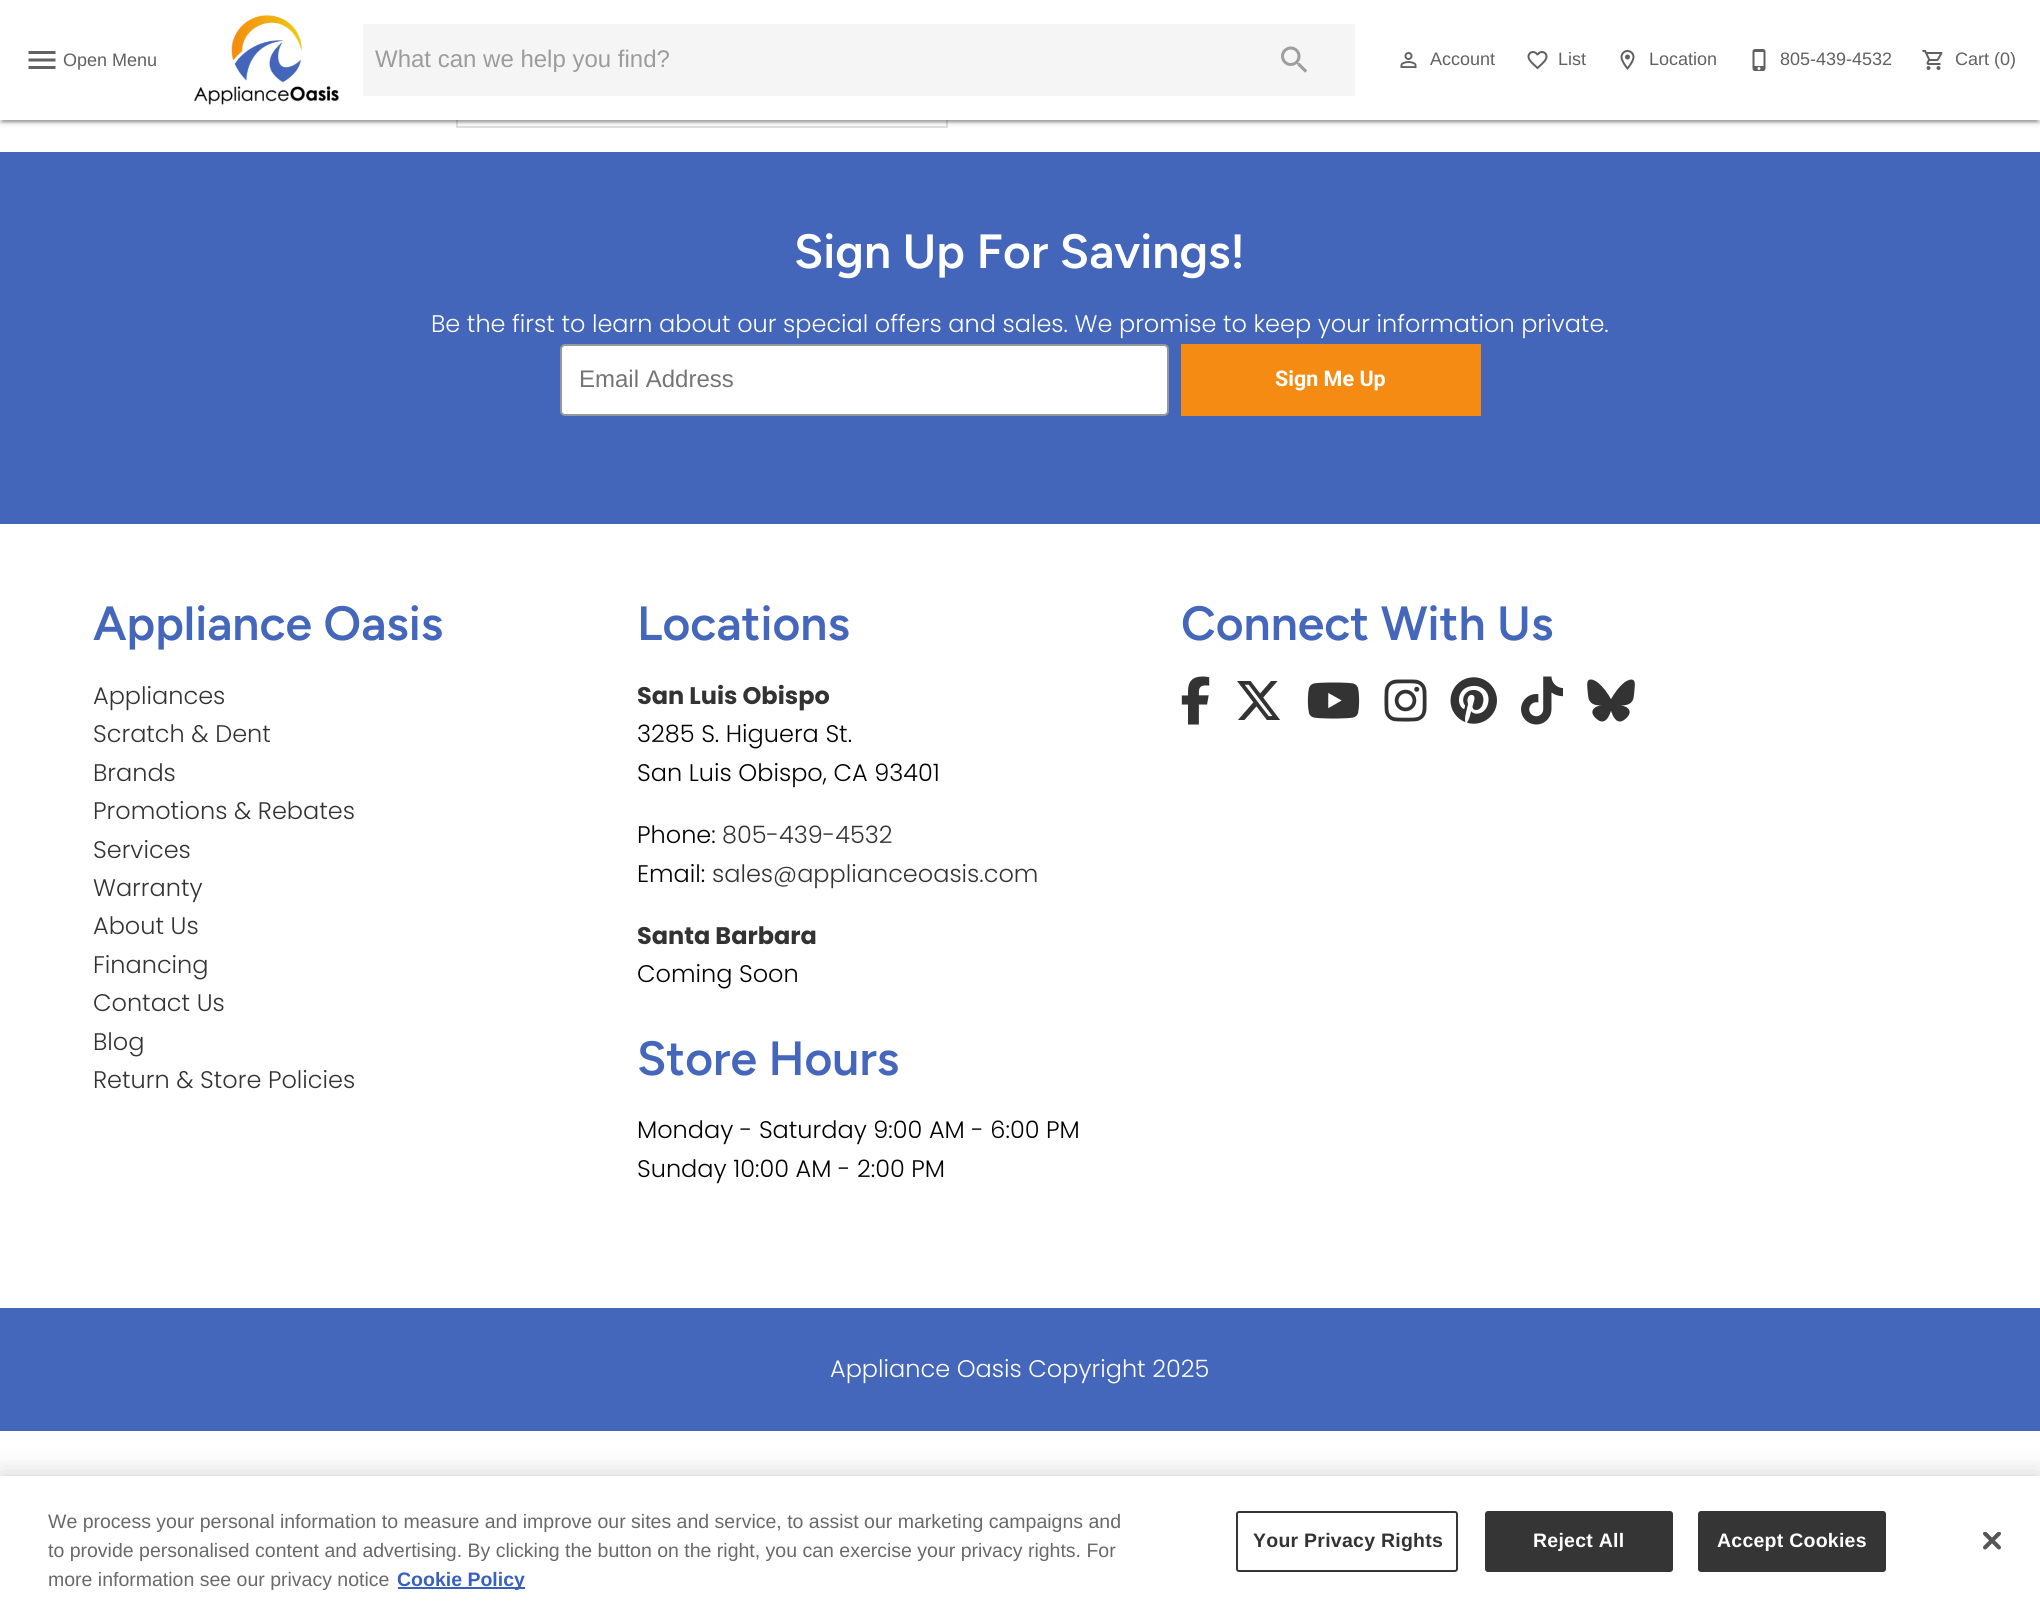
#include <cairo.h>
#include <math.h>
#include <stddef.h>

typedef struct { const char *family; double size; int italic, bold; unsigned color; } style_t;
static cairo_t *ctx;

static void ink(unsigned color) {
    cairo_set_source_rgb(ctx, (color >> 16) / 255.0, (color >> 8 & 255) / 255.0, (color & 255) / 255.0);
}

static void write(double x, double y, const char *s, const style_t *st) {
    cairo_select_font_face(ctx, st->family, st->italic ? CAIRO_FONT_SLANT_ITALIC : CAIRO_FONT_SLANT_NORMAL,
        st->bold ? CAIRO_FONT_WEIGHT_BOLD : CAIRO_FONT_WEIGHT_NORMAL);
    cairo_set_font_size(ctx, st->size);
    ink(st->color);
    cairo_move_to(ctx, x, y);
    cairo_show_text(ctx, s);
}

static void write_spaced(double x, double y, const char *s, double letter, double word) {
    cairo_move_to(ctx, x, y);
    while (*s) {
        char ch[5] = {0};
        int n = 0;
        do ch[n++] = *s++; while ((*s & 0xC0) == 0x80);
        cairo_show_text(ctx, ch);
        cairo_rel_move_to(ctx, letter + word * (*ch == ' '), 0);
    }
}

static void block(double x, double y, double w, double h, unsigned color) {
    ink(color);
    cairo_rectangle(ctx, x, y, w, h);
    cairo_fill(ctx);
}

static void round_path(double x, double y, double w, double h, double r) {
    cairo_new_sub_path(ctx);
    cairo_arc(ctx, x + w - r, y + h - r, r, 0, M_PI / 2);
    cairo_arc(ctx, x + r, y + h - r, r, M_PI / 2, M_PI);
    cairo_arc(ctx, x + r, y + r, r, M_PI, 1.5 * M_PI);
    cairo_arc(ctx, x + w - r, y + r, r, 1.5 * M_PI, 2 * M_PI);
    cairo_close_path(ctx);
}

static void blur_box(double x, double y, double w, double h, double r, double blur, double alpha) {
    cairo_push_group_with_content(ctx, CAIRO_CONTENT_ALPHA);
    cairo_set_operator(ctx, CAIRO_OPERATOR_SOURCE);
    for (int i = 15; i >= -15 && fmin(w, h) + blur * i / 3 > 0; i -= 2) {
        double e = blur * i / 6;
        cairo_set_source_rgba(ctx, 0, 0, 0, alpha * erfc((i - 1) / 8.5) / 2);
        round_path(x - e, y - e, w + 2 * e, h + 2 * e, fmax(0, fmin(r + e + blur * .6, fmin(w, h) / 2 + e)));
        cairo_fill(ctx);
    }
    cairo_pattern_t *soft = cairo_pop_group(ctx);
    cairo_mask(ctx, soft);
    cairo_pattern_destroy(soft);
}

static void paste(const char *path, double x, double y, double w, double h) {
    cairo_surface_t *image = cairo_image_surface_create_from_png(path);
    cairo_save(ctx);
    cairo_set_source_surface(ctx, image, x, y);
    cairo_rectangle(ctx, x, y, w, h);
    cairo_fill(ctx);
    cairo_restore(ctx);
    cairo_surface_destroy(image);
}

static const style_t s1 = {"Liberation Sans", 18, 0, 0, 0x616161};
static const style_t s2 = {"Liberation Sans", 24, 0, 0, 0x9c9c9c};
static const style_t s3 = {"Figtree SemiBold", 48, 0, 0, 0xffffff};
static const style_t s4 = {"Poppins Light", 24, 0, 0, 0xffffff};
static const style_t s5 = {"Liberation Sans", 24, 0, 0, 0x757575};
static const style_t s6 = {"Roboto", 21.5, 0, 1, 0xffffff};
static const style_t s7 = {"Figtree SemiBold", 48, 0, 0, 0x4466bb};
static const style_t s8 = {"Poppins Light", 24, 0, 0, 0x333333};
static const style_t s9 = {"Poppins", 24, 0, 1, 0x333333};
static const style_t s10 = {"Poppins Light", 24, 0, 0, 0x000000};
static const style_t s11 = {"Liberation Sans", 19.5, 0, 0, 0x696969};
static const style_t s12 = {"Liberation Sans", 19.5, 0, 1, 0x3860be};

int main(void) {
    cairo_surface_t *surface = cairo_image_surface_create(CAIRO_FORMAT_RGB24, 2040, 1609);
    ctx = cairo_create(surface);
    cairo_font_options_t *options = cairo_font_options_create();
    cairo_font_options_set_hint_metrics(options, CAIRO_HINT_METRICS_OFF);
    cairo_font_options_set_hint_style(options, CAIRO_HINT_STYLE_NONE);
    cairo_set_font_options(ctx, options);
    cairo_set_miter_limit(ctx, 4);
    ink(0xffffff);
    cairo_paint(ctx);
    cairo_rectangle(ctx, 457, -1, 490, 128);
    ink(0xe0e0e0);
    cairo_stroke(ctx);
    ink(0x000000);
    blur_box(0, 2, 2040, 120, 0, 4, 0.12);
    blur_box(0, 3, 2040, 120, 0, 1.5, 0.14);
    blur_box(3, 8, 2034, 114, 0, 1, 0.2);
    block(0, 0, 2040, 120, 0xffffff);
    paste("pic1.png", 28, 51, 28, 18);
    write(63, 66, "Open Menu", &s1);
    paste("pic2.png", 194, 15, 145, 90);
    block(363, 24, 992, 72, 0xf5f5f5);
    write(375, 67, "What can we help you find?", &s2);
    paste("pic3.png", 1281, 46, 27, 27);
    paste("pic4.png", 1400, 52, 17, 16);
    write(1430, 65, "Account", &s1);
    paste("pic5.png", 1527, 51, 21, 19);
    write(1558, 65, "List", &s1);
    paste("pic6.png", 1620, 50, 15, 20);
    write(1649, 65, "Location", &s1);
    paste("pic7.png", 1752, 49, 14, 22);
    write(1780, 65, "805-439-4532", &s1);
    paste("pic8.png", 1922, 50, 21, 20);
    write(1955, 65, "Cart (0)", &s1);
    block(0, 152, 2040, 372, 0x4366bb);
    write(794, 268, "Sign Up For Savings!", &s3);
    write(431, 332, "Be the first to learn about our special offers and sales. We promise to keep your information private.", &s4);
    round_path(561, 345, 607, 70, 4);
    cairo_fill_preserve(ctx);
    ink(0x95989a);
    cairo_stroke(ctx);
    write(579, 387, "Email Address", &s5);
    block(1181, 344, 300, 72, 0xf58b12);
    write(1275, 386, "Sign Me Up", &s6);
    write(93, 640, "Appliance Oasis", &s7);
    write(93, 704, "Appliances", &s8);
    write(93, 742, "Scratch & Dent", &s8);
    write(93, 781, "Brands", &s8);
    write(93, 819, "Promotions & Rebates", &s8);
    write(93, 858, "Services", &s8);
    write(93, 896, "Warranty", &s8);
    write(93, 934, "About Us", &s8);
    write(93, 973, "Financing", &s8);
    write(93, 1011, "Contact Us", &s8);
    write(93, 1050, "Blog", &s8);
    write(93, 1088, "Return & Store Policies", &s8);
    write(637, 640, "Locations", &s7);
    write(637, 704, "San Luis Obispo", &s9);
    write(637, 742, "3285 S. Higuera St.", &s10);
    write(637, 781, "San Luis Obispo, CA 93401", &s10);
    write(637, 843, "Phone:", &s10);
    write(722, 843, "805-439-4532", &s8);
    write(637, 882, "Email:", &s10);
    write(712, 882, "sales@applianceoasis.com", &s8);
    write(637, 944, "Santa Barbara", &s9);
    write(637, 982, "Coming Soon", &s10);
    write(637, 1075, "Store Hours", &s7);
    write(637, 1138, "Monday - Saturday 9:00 AM - 6:00 PM", &s10);
    write(637, 1177, "Sunday 10:00 AM - 2:00 PM", &s10);
    write(1181, 640, "Connect With Us", &s7);
    paste("pic9.png", 1181, 676, 29, 49);
    paste("pic10.png", 1237, 681, 43, 39);
    paste("pic11.png", 1307, 682, 53, 37);
    paste("pic12.png", 1384, 679, 43, 43);
    paste("pic13.png", 1450, 677, 47, 47);
    paste("pic14.png", 1521, 676, 42, 49);
    paste("pic15.png", 1587, 679, 48, 43);
    block(0, 1308, 2040, 123, 0x4466bb);
    write(830, 1377, "Appliance Oasis Copyright 2025", &s4);
    ink(0x000000);
    blur_box(0, 1476, 2040, 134, 0, 13.5, 0.2);
    block(0, 1476, 2040, 133, 0xffffff);
    write(48, 1528, "We process your personal information to measure and improve our sites and service, to assist our marketing campaigns and", &s11);
    write(48, 1557, "to provide personalised content and advertising. By clicking the button on the right, you can exercise your privacy rights. For", &s11);
    write(48, 1586, "more information see our privacy notice", &s11);
    block(398, 1587, 127, 2, 0x3860be);
    write(397, 1586, "Cookie Policy", &s12);
    round_path(1237, 1512, 220, 59, 2);
    ink(0x353535);
    cairo_stroke(ctx);
    ink(0x333333);
    write_spaced(1253, 1547, "Your Privacy Rights", 0.25, 0);
    ink(0x353535);
    round_path(1486, 1512, 186, 59, 2);
    cairo_fill_preserve(ctx);
    cairo_stroke(ctx);
    ink(0xffffff);
    write_spaced(1533, 1547, "Reject All", 0.25, 0);
    ink(0x353535);
    round_path(1699, 1512, 186, 59, 2);
    cairo_fill_preserve(ctx);
    cairo_stroke(ctx);
    ink(0xffffff);
    write_spaced(1717, 1547, "Accept Cookies", 0.25, 0);
    paste("pic16.png", 1983, 1532, 18, 18);
    cairo_surface_write_to_png(surface, "screenshot.png");
    cairo_font_options_destroy(options);
    cairo_destroy(ctx);
    cairo_surface_destroy(surface);
    return 0;
}
